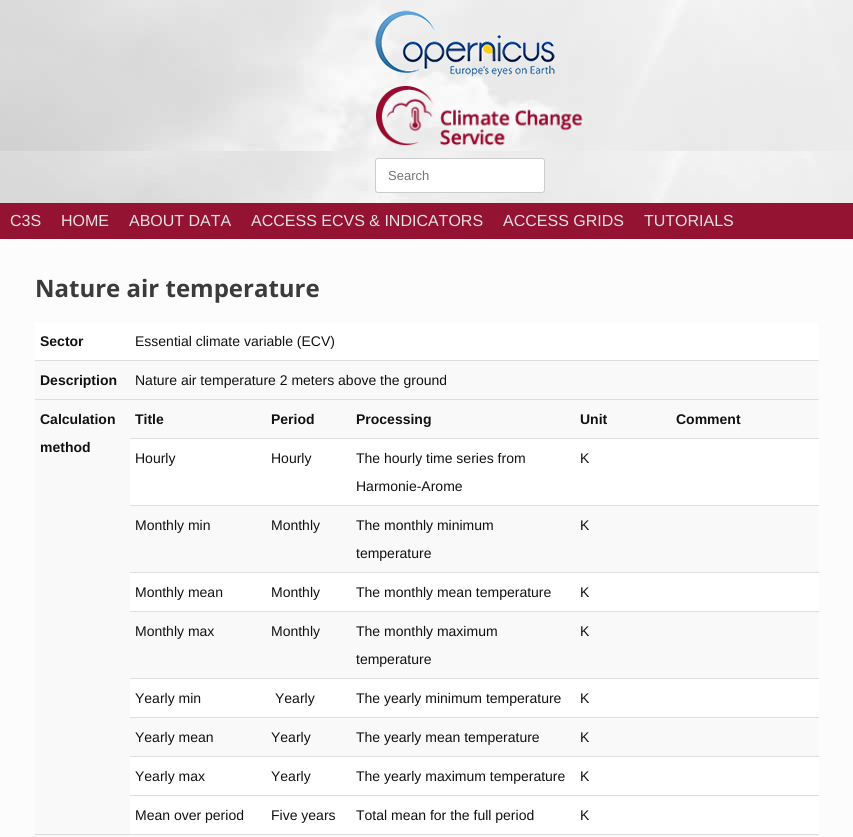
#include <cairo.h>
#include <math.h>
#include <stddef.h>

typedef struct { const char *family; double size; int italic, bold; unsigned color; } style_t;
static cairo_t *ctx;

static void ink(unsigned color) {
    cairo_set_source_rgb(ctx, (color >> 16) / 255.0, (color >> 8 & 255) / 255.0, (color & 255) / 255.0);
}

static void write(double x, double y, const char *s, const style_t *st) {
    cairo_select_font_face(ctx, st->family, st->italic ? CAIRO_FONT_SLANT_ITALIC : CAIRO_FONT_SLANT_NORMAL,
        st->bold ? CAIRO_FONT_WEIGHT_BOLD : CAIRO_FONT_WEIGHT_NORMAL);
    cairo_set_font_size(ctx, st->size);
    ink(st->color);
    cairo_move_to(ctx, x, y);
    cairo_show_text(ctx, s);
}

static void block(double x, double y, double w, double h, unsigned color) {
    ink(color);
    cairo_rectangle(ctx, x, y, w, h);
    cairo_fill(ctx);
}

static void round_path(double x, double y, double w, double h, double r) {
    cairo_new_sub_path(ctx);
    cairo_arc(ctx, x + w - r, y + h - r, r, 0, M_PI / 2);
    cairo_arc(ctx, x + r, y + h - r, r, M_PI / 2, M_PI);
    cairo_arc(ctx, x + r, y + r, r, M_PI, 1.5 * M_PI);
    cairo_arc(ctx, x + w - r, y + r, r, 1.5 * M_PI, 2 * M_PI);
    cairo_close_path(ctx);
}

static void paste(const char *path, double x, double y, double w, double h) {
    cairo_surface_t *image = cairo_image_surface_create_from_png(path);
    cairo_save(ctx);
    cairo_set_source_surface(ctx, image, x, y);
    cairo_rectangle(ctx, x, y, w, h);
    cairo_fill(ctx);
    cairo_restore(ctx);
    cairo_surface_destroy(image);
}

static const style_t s1 = {"Liberation Sans", 13, 0, 0, 0x757575};
static const style_t s2 = {"Liberation Sans", 16, 0, 0, 0xe2e2e2};
static const style_t s3 = {"Open Sans", 24, 0, 1, 0x3b3b3b};
static const style_t s4 = {"Liberation Sans", 14, 0, 1, 0x111111};
static const style_t s5 = {"Liberation Sans", 14, 0, 0, 0x111111};

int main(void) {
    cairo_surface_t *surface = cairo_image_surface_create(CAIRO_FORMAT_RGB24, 853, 837);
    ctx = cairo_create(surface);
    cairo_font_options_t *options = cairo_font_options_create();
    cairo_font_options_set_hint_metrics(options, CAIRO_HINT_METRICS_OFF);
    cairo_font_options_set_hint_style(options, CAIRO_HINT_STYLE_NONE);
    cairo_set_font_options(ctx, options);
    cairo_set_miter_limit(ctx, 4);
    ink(0xffffff);
    cairo_paint(ctx);
    paste("pic1.png", 0, 0, 853, 203);
    paste("pic2.png", 375, 10, 180, 67);
    paste("pic3.png", 376, 86, 207, 60);
    ink(0xffffff);
    round_path(375.5, 158.5, 169, 34, 2.5);
    cairo_fill_preserve(ctx);
    ink(0xcccccc);
    cairo_set_line_width(ctx, 1);
    cairo_stroke(ctx);
    write(388, 180, "Search", &s1);
    block(0, 203, 853, 36, 0x941333);
    write(10, 226, "C3S", &s2);
    write(61, 226, "HOME", &s2);
    write(129, 226, "ABOUT DATA", &s2);
    write(251, 226, "ACCESS ECVS & INDICATORS", &s2);
    write(503, 226, "ACCESS GRIDS", &s2);
    write(644, 226, "TUTORIALS", &s2);
    block(0, 239, 853, 598, 0xfcfcfc);
    write(35, 297, "Nature air temperature", &s3);
    block(35, 322, 783, 38, 0xffffff);
    write(40, 346, "Sector", &s4);
    write(135, 346, "Essential climate variable (ECV)", &s5);
    block(35, 361, 783, 38, 0xf9f9f9);
    write(40, 385, "Description", &s4);
    block(35, 360, 784, 1, 0xdddddd);
    write(135, 385, "Nature air temperature 2 meters above the ground", &s5);
    block(35, 400, 95, 434, 0xf9f9f9);
    write(40, 424, "Calculation", &s4);
    write(40, 452, "method", &s4);
    block(130, 400, 688, 38, 0xf9f9f9);
    write(135, 424, "Title", &s4);
    write(271, 424, "Period", &s4);
    write(356, 424, "Processing", &s4);
    write(580, 424, "Unit", &s4);
    block(35, 399, 784, 1, 0xdddddd);
    write(676, 424, "Comment", &s4);
    block(130, 438, 689, 1, 0xdddddd);
    block(130, 439, 688, 66, 0xffffff);
    write(135, 463, "Hourly", &s5);
    write(271, 463, "Hourly", &s5);
    write(356, 463, "The hourly time series from", &s5);
    write(356, 491, "Harmonie-Arome", &s5);
    write(580, 463, "K", &s5);
    block(130, 505, 689, 1, 0xdddddd);
    block(130, 506, 688, 66, 0xf9f9f9);
    write(135, 530, "Monthly min", &s5);
    write(271, 530, "Monthly", &s5);
    write(356, 530, "The monthly minimum", &s5);
    write(356, 558, "temperature", &s5);
    write(580, 530, "K", &s5);
    block(130, 572, 689, 1, 0xdddddd);
    block(130, 573, 688, 38, 0xffffff);
    write(135, 597, "Monthly mean", &s5);
    write(271, 597, "Monthly", &s5);
    write(356, 597, "The monthly mean temperature", &s5);
    write(580, 597, "K", &s5);
    block(130, 611, 689, 1, 0xdddddd);
    block(130, 612, 688, 66, 0xf9f9f9);
    write(135, 636, "Monthly max", &s5);
    write(271, 636, "Monthly", &s5);
    write(356, 636, "The monthly maximum", &s5);
    write(356, 664, "temperature", &s5);
    write(580, 636, "K", &s5);
    block(130, 678, 689, 1, 0xdddddd);
    block(130, 679, 688, 38, 0xffffff);
    write(135, 703, "Yearly min", &s5);
    write(275, 703, "Yearly", &s5);
    write(356, 703, "The yearly minimum temperature", &s5);
    write(580, 703, "K", &s5);
    block(130, 717, 689, 1, 0xdddddd);
    block(130, 718, 688, 38, 0xf9f9f9);
    write(135, 742, "Yearly mean", &s5);
    write(271, 742, "Yearly", &s5);
    write(356, 742, "The yearly mean temperature", &s5);
    write(580, 742, "K", &s5);
    block(130, 756, 689, 1, 0xdddddd);
    block(130, 757, 688, 38, 0xffffff);
    write(135, 781, "Yearly max", &s5);
    write(271, 781, "Yearly", &s5);
    write(356, 781, "The yearly maximum temperature", &s5);
    write(580, 781, "K", &s5);
    block(130, 795, 689, 1, 0xdddddd);
    block(130, 796, 688, 38, 0xffffff);
    write(135, 820, "Mean over period", &s5);
    write(271, 820, "Five years", &s5);
    write(356, 820, "Total mean for the full period", &s5);
    write(580, 820, "K", &s5);
    block(35, 834, 784, 1, 0xdddddd);
    block(35, 835, 783, 2, 0xf9f9f9);
    cairo_surface_write_to_png(surface, "screenshot.png");
    cairo_font_options_destroy(options);
    cairo_destroy(ctx);
    cairo_surface_destroy(surface);
    return 0;
}
